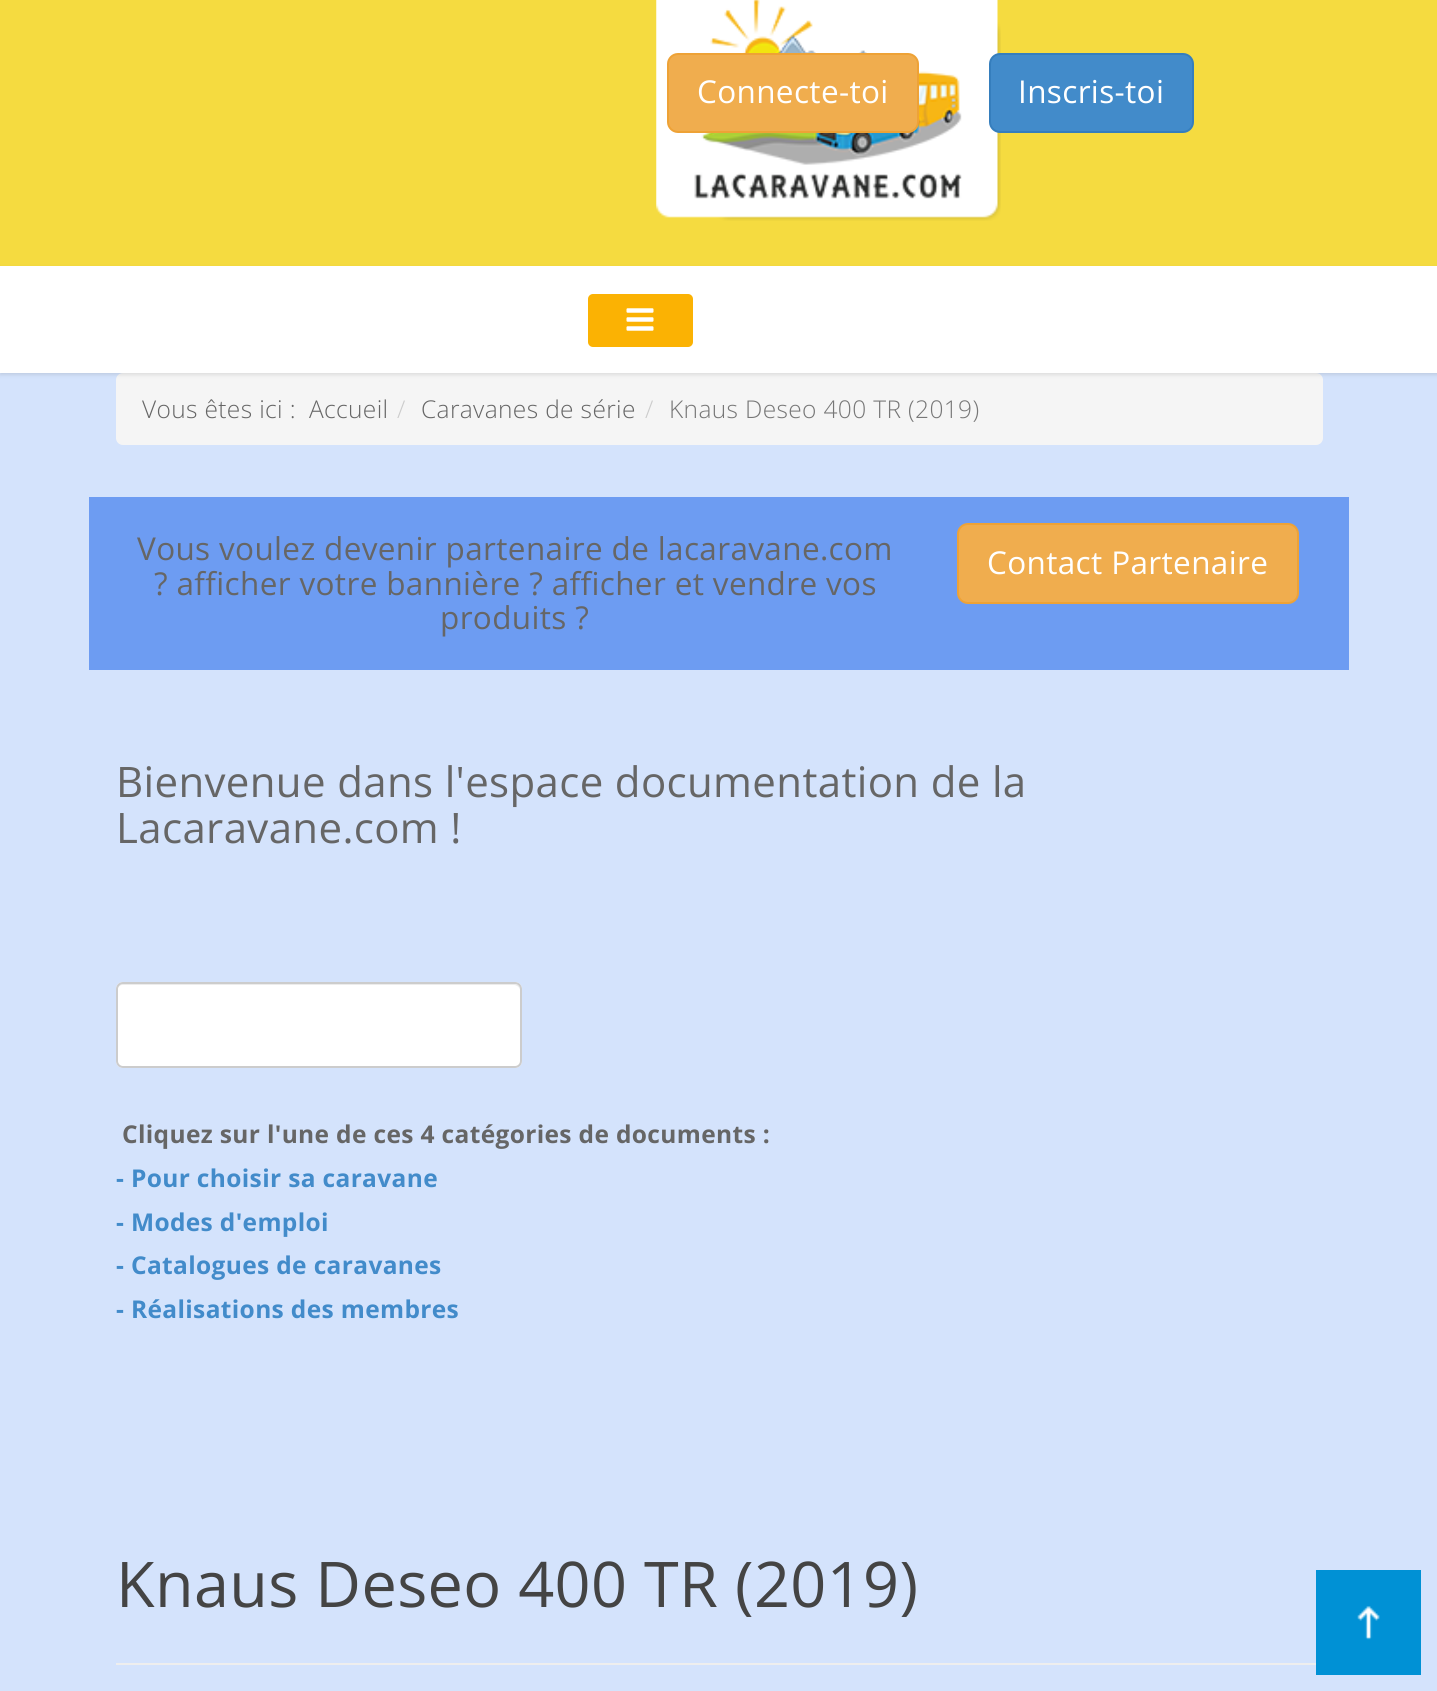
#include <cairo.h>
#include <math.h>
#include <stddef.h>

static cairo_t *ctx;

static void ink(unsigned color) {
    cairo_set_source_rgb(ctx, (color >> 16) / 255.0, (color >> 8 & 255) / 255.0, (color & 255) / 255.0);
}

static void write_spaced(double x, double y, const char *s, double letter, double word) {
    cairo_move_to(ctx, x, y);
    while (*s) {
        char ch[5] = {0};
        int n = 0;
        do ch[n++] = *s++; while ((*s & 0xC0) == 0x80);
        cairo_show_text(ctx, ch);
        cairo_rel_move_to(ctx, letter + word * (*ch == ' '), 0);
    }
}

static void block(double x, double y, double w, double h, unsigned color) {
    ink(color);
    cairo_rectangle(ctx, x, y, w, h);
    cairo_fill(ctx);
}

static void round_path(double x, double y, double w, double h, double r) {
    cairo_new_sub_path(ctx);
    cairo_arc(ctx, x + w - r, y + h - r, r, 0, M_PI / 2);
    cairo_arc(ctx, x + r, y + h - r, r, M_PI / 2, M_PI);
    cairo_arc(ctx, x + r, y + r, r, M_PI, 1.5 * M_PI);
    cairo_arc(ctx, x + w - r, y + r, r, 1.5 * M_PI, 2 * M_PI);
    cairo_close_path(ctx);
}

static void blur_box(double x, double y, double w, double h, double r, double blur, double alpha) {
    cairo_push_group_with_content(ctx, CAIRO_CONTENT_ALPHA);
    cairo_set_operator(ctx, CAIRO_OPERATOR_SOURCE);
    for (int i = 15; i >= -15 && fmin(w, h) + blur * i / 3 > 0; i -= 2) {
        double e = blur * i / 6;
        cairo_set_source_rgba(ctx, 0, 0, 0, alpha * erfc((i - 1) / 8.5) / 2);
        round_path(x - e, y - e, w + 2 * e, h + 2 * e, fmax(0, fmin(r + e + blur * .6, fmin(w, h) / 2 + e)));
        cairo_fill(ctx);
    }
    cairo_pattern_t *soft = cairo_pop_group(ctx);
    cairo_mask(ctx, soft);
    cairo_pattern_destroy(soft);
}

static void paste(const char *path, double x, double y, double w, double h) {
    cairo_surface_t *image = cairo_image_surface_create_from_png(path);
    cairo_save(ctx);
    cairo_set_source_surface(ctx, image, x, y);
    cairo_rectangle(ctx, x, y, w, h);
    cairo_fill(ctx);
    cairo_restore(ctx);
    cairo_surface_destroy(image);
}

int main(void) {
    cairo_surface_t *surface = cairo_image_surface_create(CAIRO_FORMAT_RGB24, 1437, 1691);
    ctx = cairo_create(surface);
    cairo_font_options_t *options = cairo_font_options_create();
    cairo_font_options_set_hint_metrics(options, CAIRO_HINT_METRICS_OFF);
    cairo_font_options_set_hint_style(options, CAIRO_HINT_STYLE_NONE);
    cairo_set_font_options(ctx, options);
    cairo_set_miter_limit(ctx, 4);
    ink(0xd4e3fc);
    cairo_paint(ctx);
    block(0, 0, 1437, 266, 0xf5db40);
    paste("pic1.png", 656, 0, 345, 221);
    ink(0xf0ad4e);
    round_path(668, 54, 250, 78, 10);
    cairo_fill_preserve(ctx);
    ink(0xeea236);
    cairo_stroke(ctx);
    cairo_select_font_face(ctx, "Open Sans", CAIRO_FONT_SLANT_NORMAL, CAIRO_FONT_WEIGHT_NORMAL);
    cairo_set_font_size(ctx, 31.5);
    ink(0xffffff);
    write_spaced(697, 103, "Connecte-toi", 0.35, 0);
    ink(0x428bca);
    round_path(990, 54, 203, 78, 10);
    cairo_fill_preserve(ctx);
    ink(0x357ebd);
    cairo_stroke(ctx);
    ink(0xffffff);
    write_spaced(1018, 103, "Inscris-toi", 0.35, 0);
    ink(0xf5f5f5);
    round_path(116, 373, 1207, 72, 7);
    cairo_fill(ctx);
    ink(0x000000);
    blur_box(0, 268, 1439, 107, 0, 2, 0.1);
    block(0, 266, 1437, 107, 0xffffff);
    ink(0xfbb203);
    round_path(588, 294, 105, 53, 5);
    cairo_fill(ctx);
    paste("pic2.png", 626, 308, 28, 23);
    cairo_select_font_face(ctx, "Open Sans Light", CAIRO_FONT_SLANT_NORMAL, CAIRO_FONT_WEIGHT_NORMAL);
    cairo_set_font_size(ctx, 24.5);
    ink(0x666666);
    write_spaced(142, 418, "Vous êtes ici :", 0.35, 0);
    write_spaced(309, 418, "Accueil", 0.35, 0);
    ink(0xcccccc);
    write_spaced(397, 418, "/", 0.35, 0);
    ink(0x666666);
    write_spaced(421, 418, "Caravanes de série", 0.35, 0);
    ink(0xcccccc);
    write_spaced(645, 418, "/", 0.35, 0);
    ink(0x777777);
    write_spaced(669, 418, "Knaus Deseo 400 TR (2019)", 0.35, 0);
    block(89, 497, 1260, 173, 0x6d9cf2);
    cairo_select_font_face(ctx, "Open Sans", CAIRO_FONT_SLANT_NORMAL, CAIRO_FONT_WEIGHT_NORMAL);
    cairo_set_font_size(ctx, 31.5);
    ink(0x666666);
    write_spaced(137, 560, "Vous voulez devenir partenaire de lacaravane.com", 0.35, 0);
    write_spaced(154, 595, "? afficher votre bannière ? afficher et vendre vos", 0.35, 0);
    write_spaced(440, 629, "produits ?", 0.35, 0);
    ink(0xf0ad4e);
    round_path(958, 524, 340, 79, 10);
    cairo_fill_preserve(ctx);
    ink(0xeea236);
    cairo_stroke(ctx);
    ink(0xffffff);
    write_spaced(987, 574, "Contact Partenaire", 0.35, 0);
    cairo_set_font_size(ctx, 42);
    ink(0x666666);
    write_spaced(116, 797, "Bienvenue dans l'espace documentation de la", 0.35, 0);
    write_spaced(116, 843, "Lacaravane.com !", 0.35, 0);
    ink(0xffffff);
    round_path(116, 982, 406, 86, 7);
    cairo_fill(ctx);
    ink(0xececec);
    cairo_new_path(ctx);
    cairo_move_to(ctx, 122, 985);
    cairo_line_to(ctx, 514, 985);
    cairo_curve_to(ctx, 517, 985, 520, 988, 520, 990);
    cairo_line_to(ctx, 520, 989);
    cairo_curve_to(ctx, 520, 986, 518, 984, 515, 984);
    cairo_line_to(ctx, 122, 984);
    cairo_curve_to(ctx, 119, 984, 117, 986, 117, 989);
    cairo_line_to(ctx, 117, 990);
    cairo_curve_to(ctx, 117, 988, 120, 985, 122, 985);
    cairo_close_path(ctx);
    cairo_fill(ctx);
    round_path(117, 983, 404, 84, 6);
    ink(0xcccccc);
    cairo_stroke(ctx);
    cairo_select_font_face(ctx, "Open Sans", CAIRO_FONT_SLANT_NORMAL, CAIRO_FONT_WEIGHT_BOLD);
    cairo_set_font_size(ctx, 24.5);
    ink(0x666666);
    write_spaced(122, 1143, "Cliquez sur l'une de ces 4 catégories de documents :", 0.35, 0);
    ink(0x428bca);
    write_spaced(116, 1187, "- Pour choisir sa caravane", 0.35, 0);
    write_spaced(116, 1231, "- Modes d'emploi", 0.35, 0);
    write_spaced(116, 1274, "- Catalogues de caravanes", 0.35, 0);
    write_spaced(116, 1318, "- Réalisations des membres", 0.35, 0);
    block(116, 1663, 1207, 2, 0xeeeeee);
    cairo_select_font_face(ctx, "Open Sans", CAIRO_FONT_SLANT_NORMAL, CAIRO_FONT_WEIGHT_NORMAL);
    cairo_set_font_size(ctx, 63);
    ink(0x444444);
    write_spaced(116, 1607, "Knaus Deseo 400 TR (2019)", 0.35, 0);
    block(1316, 1570, 105, 105, 0x0091d5);
    paste("pic3.png", 1357, 1606, 23, 34);
    cairo_surface_write_to_png(surface, "screenshot.png");
    cairo_font_options_destroy(options);
    cairo_destroy(ctx);
    cairo_surface_destroy(surface);
    return 0;
}
